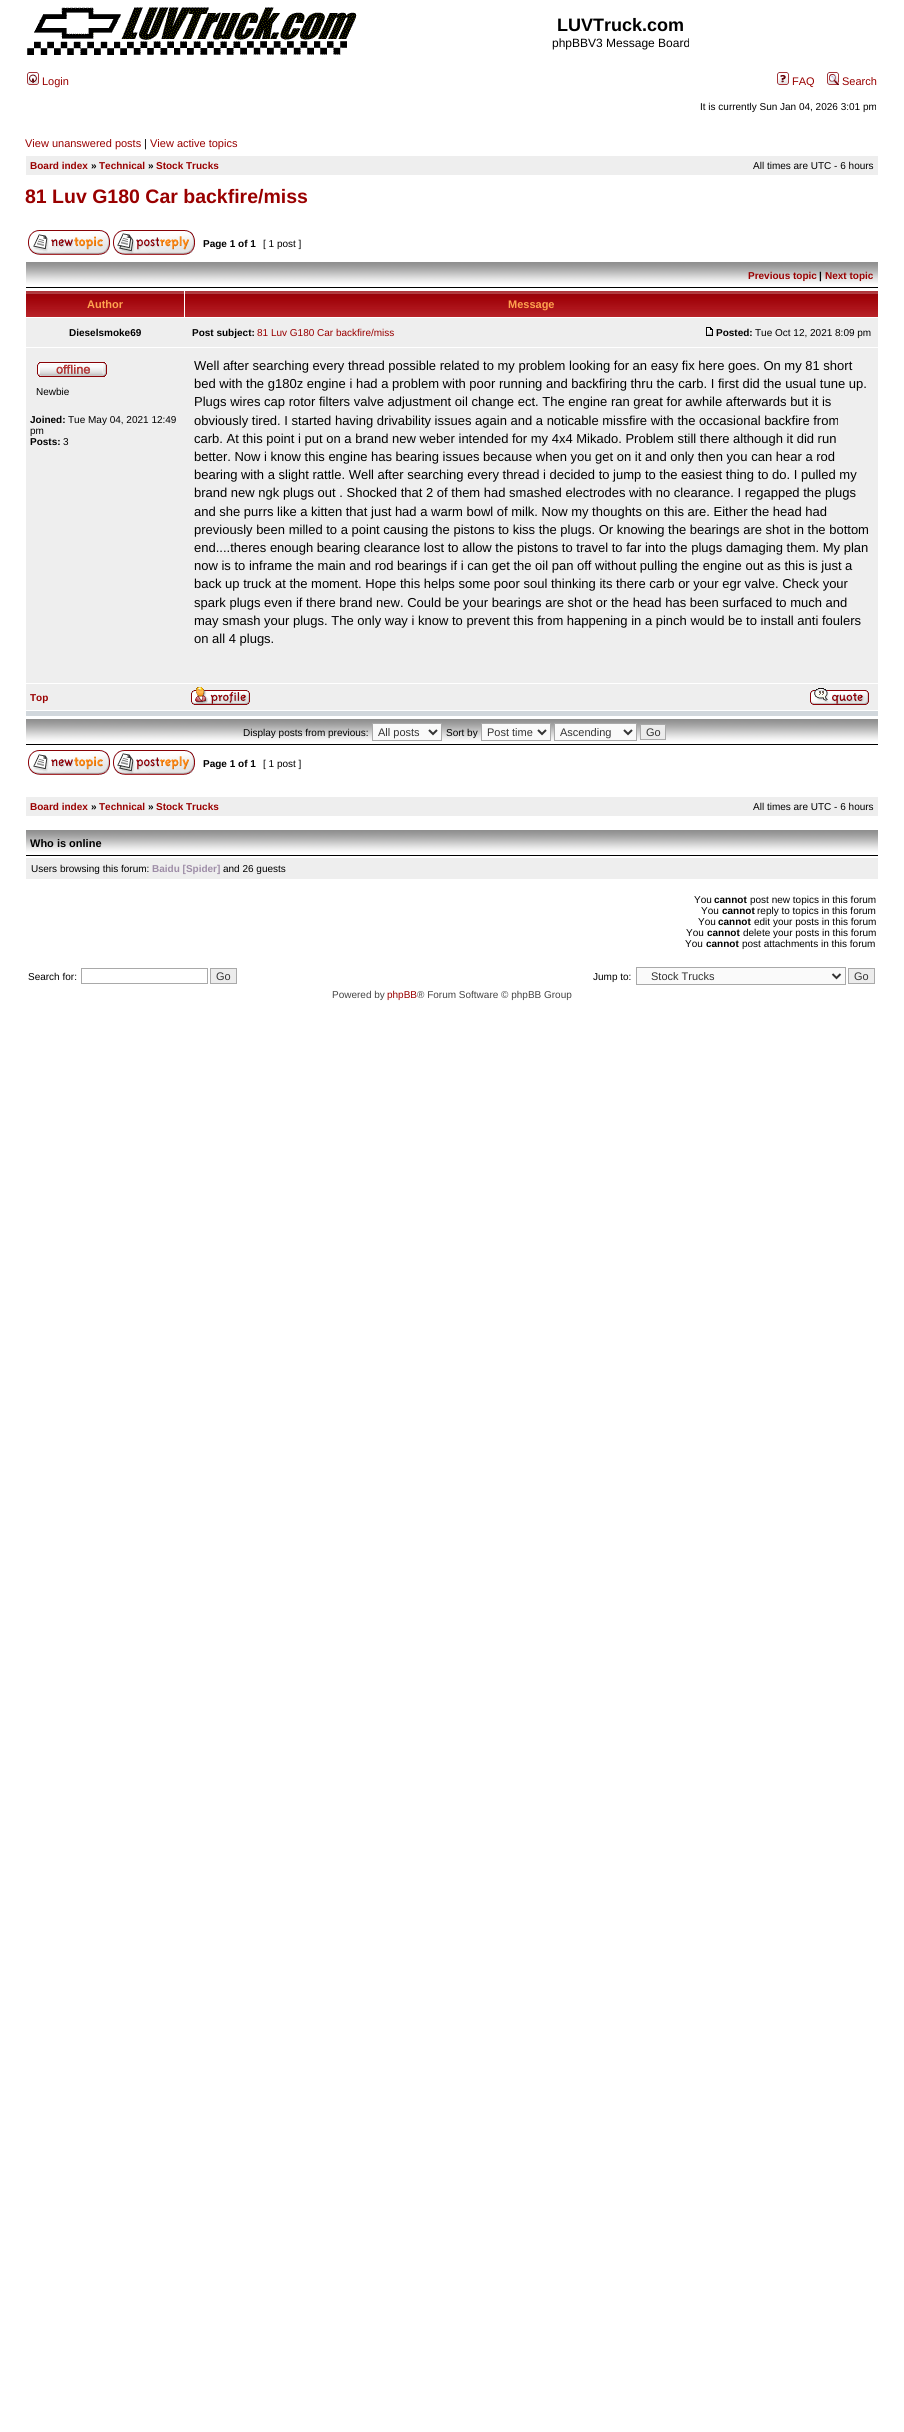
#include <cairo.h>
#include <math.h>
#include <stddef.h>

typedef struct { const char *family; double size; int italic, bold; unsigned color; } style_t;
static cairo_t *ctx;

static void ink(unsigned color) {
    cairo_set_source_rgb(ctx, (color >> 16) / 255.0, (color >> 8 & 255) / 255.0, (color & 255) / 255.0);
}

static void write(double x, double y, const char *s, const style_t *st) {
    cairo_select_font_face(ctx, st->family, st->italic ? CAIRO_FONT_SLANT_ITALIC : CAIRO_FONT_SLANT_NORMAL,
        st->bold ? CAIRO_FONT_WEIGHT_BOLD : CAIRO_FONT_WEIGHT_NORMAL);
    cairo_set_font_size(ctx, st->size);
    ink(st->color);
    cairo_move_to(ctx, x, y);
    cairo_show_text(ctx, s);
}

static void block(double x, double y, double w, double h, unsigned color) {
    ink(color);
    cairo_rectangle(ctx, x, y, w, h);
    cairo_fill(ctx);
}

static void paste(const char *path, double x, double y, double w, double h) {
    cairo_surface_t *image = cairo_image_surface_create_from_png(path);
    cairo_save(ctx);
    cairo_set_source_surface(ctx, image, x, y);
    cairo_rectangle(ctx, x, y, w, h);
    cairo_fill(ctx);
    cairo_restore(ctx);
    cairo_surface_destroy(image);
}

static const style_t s1 = {"Liberation Sans", 18, 0, 1, 0x000000};
static const style_t s2 = {"Liberation Sans", 12, 0, 0, 0x000000};
static const style_t s3 = {"Liberation Sans", 11, 0, 0, 0x990000};
static const style_t s4 = {"Liberation Sans", 10, 0, 0, 0x000000};
static const style_t s5 = {"Liberation Sans", 11, 0, 0, 0x000000};
static const style_t s6 = {"Liberation Sans", 10, 0, 1, 0x990000};
static const style_t s7 = {"Liberation Sans", 10, 0, 1, 0x000000};
static const style_t s8 = {"Liberation Sans", 19.5, 0, 1, 0x990000};
static const style_t s9 = {"Liberation Sans", 11, 0, 1, 0xffa34f};
static const style_t s10 = {"Liberation Sans", 10, 0, 0, 0x990000};
static const style_t s11 = {"Liberation Sans", 13, 0, 0, 0x000000};
static const style_t s12 = {"Liberation Sans", 11, 0, 0, 0x333333};
static const style_t s13 = {"Liberation Sans", 11, 0, 1, 0x000000};
static const style_t s14 = {"Liberation Sans", 10, 0, 1, 0x9e8da7};
static const style_t s15 = {"Liberation Sans", 10, 0, 0, 0x444444};

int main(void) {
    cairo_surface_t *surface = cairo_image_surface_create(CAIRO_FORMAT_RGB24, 904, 2432);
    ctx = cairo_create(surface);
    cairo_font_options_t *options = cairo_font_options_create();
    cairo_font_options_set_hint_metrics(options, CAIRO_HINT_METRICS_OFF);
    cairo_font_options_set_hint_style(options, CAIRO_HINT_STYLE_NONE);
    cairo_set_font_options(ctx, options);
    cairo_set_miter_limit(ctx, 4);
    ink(0xffffff);
    cairo_paint(ctx);
    paste("pic1.png", 27, 7, 330, 48);
    write(557, 31, "LUVTruck.com", &s1);
    write(552, 47, "phpBBV3 Message Board", &s2);
    paste("pic2.png", 27, 72, 12, 13);
    write(42, 85, "Login", &s3);
    paste("pic3.png", 777, 72, 12, 13);
    write(792, 85, "FAQ", &s3);
    paste("pic4.png", 827, 72, 12, 13);
    write(842, 85, "Search", &s3);
    write(700, 110, "It is currently Sun Jan 04, 2026 3:01 pm", &s4);
    write(25, 147, "View unanswered posts", &s3);
    write(144, 147, "|", &s5);
    write(150, 147, "View active topics", &s3);
    block(26, 156, 852, 19, 0xeeeeee);
    write(30, 169, "Board index", &s6);
    write(91, 169, "»", &s7);
    write(99, 169, "Technical", &s6);
    write(148, 169, "»", &s7);
    write(156, 169, "Stock Trucks", &s6);
    write(753, 169, "All times are UTC - 6 hours", &s4);
    write(25, 203, "81 Luv G180 Car backfire/miss", &s8);
    paste("pic5.png", 28, 230, 82, 25);
    paste("pic6.png", 113, 230, 82, 25);
    write(203, 247, "Page 1 of 1", &s7);
    write(263, 247, "[ 1 post ]", &s4);
    paste("pic7.png", 26, 261, 852, 28);
    write(748, 279, "Previous topic", &s6);
    write(819, 279, "|", &s7);
    write(825, 279, "Next topic", &s6);
    paste("pic8.png", 26, 291, 158, 26);
    write(87, 308, "Author", &s9);
    paste("pic9.png", 185, 291, 693, 26);
    write(508, 308, "Message", &s9);
    block(26, 318, 852, 29, 0xeeeeee);
    write(69, 336, "Dieselsmoke69", &s7);
    write(192, 336, "Post subject:", &s7);
    write(257, 336, "81 Luv G180 Car backfire/miss", &s10);
    paste("pic10.png", 706, 327, 7, 9);
    write(716, 336, "Posted:", &s7);
    write(755, 336, "Tue Oct 12, 2021 8:09 pm", &s4);
    block(26, 348, 852, 335, 0xeeeeee);
    paste("pic11.png", 37, 362, 70, 15);
    write(36, 395, "Newbie", &s4);
    write(30, 423, "Joined:", &s7);
    write(68, 423, "Tue May 04, 2021 12:49", &s4);
    write(30, 434, "pm", &s4);
    write(30, 445, "Posts:", &s7);
    write(63, 445, "3", &s4);
    write(194, 370, "Well after searching every thread possible related to my problem looking for an easy fix here goes. On my 81 short", &s11);
    write(194, 388, "bed with the g180z engine i had a problem with poor running and backfiring thru the carb. I first did the usual tune up.", &s11);
    write(194, 406, "Plugs wires cap rotor filters valve adjustment oil change ect. The engine ran great for awhile afterwards but it is", &s11);
    write(194, 425, "obviously tired. I started having drivability issues again and a noticable missfire with the occasional backfire from", &s11);
    write(194, 443, "carb. At this point i put on a brand new weber intended for my 4x4 Mikado. Problem still there although it did run", &s11);
    write(194, 461, "better. Now i know this engine has bearing issues because when you get on it and only then you can hear a rod", &s11);
    write(194, 479, "bearing with a slight rattle. Well after searching every thread i decided to jump to the easiest thing to do. I pulled my", &s11);
    write(194, 497, "brand new ngk plugs out . Shocked that 2 of them had smashed electrodes with no clearance. I regapped the plugs", &s11);
    write(194, 516, "and she purrs like a kitten that just had a warm bowl of milk. Now my thoughts on this are. Either the head had", &s11);
    write(194, 534, "previously been milled to a point causing the pistons to kiss the plugs. Or knowing the bearings are shot in the bottom", &s11);
    write(194, 552, "end....theres enough bearing clearance lost to allow the pistons to travel to far into the plugs damaging them. My plan", &s11);
    write(194, 570, "now is to inframe the main and rod bearings if i can get the oil pan off without pulling the engine out as this is just a", &s11);
    write(194, 588, "back up truck at the moment. Hope this helps some poor soul thinking its there carb or your egr valve. Check your", &s11);
    write(194, 607, "spark plugs even if there brand new. Could be your bearings are shot or the head has been surfaced to much and", &s11);
    write(194, 625, "may smash your plugs. The only way i know to prevent this from happening in a pinch would be to install anti foulers", &s11);
    write(194, 643, "on all 4 plugs.", &s11);
    block(26, 684, 852, 26, 0xeeeeee);
    write(30, 701, "Top", &s6);
    paste("pic12.png", 191, 687, 59, 18);
    paste("pic13.png", 810, 688, 59, 17);
    block(26, 711, 852, 5, 0xd1d7dc);
    paste("pic7.png", 26, 718, 852, 28);
    write(243, 736, "Display posts from previous:", &s4);
    ink(0xfafafa);
    cairo_rectangle(ctx, 372.5, 723.5, 69, 17);
    cairo_fill_preserve(ctx);
    ink(0xa9a9a9);
    cairo_set_line_width(ctx, 1);
    cairo_stroke(ctx);
    cairo_new_path(ctx);
    cairo_move_to(ctx, 429, 730);
    cairo_line_to(ctx, 433, 734);
    cairo_line_to(ctx, 437, 730);
    ink(0x333333);
    cairo_set_line_width(ctx, 2);
    cairo_stroke(ctx);
    write(378, 736, "All posts", &s12);
    write(446, 736, "Sort by", &s4);
    ink(0xfafafa);
    cairo_rectangle(ctx, 481.5, 723.5, 69, 17);
    cairo_fill_preserve(ctx);
    ink(0xa9a9a9);
    cairo_set_line_width(ctx, 1);
    cairo_stroke(ctx);
    cairo_new_path(ctx);
    cairo_move_to(ctx, 538, 730);
    cairo_line_to(ctx, 542, 734);
    cairo_line_to(ctx, 546, 730);
    ink(0x333333);
    cairo_set_line_width(ctx, 2);
    cairo_stroke(ctx);
    write(487, 736, "Post time", &s12);
    ink(0xfafafa);
    cairo_rectangle(ctx, 554.5, 723.5, 82, 17);
    cairo_fill_preserve(ctx);
    ink(0xa9a9a9);
    cairo_set_line_width(ctx, 1);
    cairo_stroke(ctx);
    cairo_new_path(ctx);
    cairo_move_to(ctx, 624, 730);
    cairo_line_to(ctx, 628, 734);
    cairo_line_to(ctx, 632, 730);
    ink(0x333333);
    cairo_set_line_width(ctx, 2);
    cairo_stroke(ctx);
    write(560, 736, "Ascending", &s12);
    ink(0xececec);
    cairo_rectangle(ctx, 640.5, 724.5, 25, 15);
    cairo_fill_preserve(ctx);
    ink(0xa9a9a9);
    cairo_set_line_width(ctx, 1);
    cairo_stroke(ctx);
    write(646, 736, "Go", &s12);
    paste("pic5.png", 28, 750, 82, 25);
    paste("pic6.png", 113, 750, 82, 25);
    write(203, 767, "Page 1 of 1", &s7);
    write(263, 767, "[ 1 post ]", &s4);
    block(26, 797, 852, 19, 0xeeeeee);
    write(30, 810, "Board index", &s6);
    write(91, 810, "»", &s7);
    write(99, 810, "Technical", &s6);
    write(148, 810, "»", &s7);
    write(156, 810, "Stock Trucks", &s6);
    write(753, 810, "All times are UTC - 6 hours", &s4);
    paste("pic7.png", 26, 829, 852, 28);
    write(30, 847, "Who is online", &s13);
    block(26, 858, 852, 21, 0xeeeeee);
    write(31, 872, "Users browsing this forum:", &s4);
    write(152, 872, "Baidu [Spider]", &s14);
    write(223, 872, "and 26 guests", &s4);
    write(694, 903, "You", &s4);
    write(714, 903, "cannot", &s7);
    write(750, 903, "post new topics in this forum", &s4);
    write(701, 914, "You", &s4);
    write(722, 914, "cannot", &s7);
    write(757, 914, "reply to topics in this forum", &s4);
    write(698, 925, "You", &s4);
    write(718, 925, "cannot", &s7);
    write(754, 925, "edit your posts in this forum", &s4);
    write(686, 936, "You", &s4);
    write(707, 936, "cannot", &s7);
    write(743, 936, "delete your posts in this forum", &s4);
    write(685, 947, "You", &s4);
    write(706, 947, "cannot", &s7);
    write(742, 947, "post attachments in this forum", &s4);
    write(28, 980, "Search for:", &s4);
    cairo_rectangle(ctx, 81.5, 968.5, 126, 15);
    ink(0xa9a9a9);
    cairo_stroke(ctx);
    ink(0xececec);
    cairo_rectangle(ctx, 210.5, 968.5, 26, 15);
    cairo_fill_preserve(ctx);
    ink(0xa9a9a9);
    cairo_stroke(ctx);
    write(216, 980, "Go", &s12);
    write(593, 980, "Jump to:", &s4);
    ink(0xfafafa);
    cairo_rectangle(ctx, 636.5, 967.5, 209, 17);
    cairo_fill_preserve(ctx);
    ink(0xa9a9a9);
    cairo_stroke(ctx);
    cairo_new_path(ctx);
    cairo_move_to(ctx, 832.5, 974);
    cairo_line_to(ctx, 836.5, 978);
    cairo_line_to(ctx, 840.5, 974);
    ink(0x333333);
    cairo_set_line_width(ctx, 2);
    cairo_stroke(ctx);
    write(651, 980, "Stock Trucks", &s12);
    ink(0xececec);
    cairo_rectangle(ctx, 848.5, 968.5, 26, 15);
    cairo_fill_preserve(ctx);
    ink(0xa9a9a9);
    cairo_set_line_width(ctx, 1);
    cairo_stroke(ctx);
    write(854, 980, "Go", &s12);
    write(332, 998, "Powered by", &s15);
    write(387, 998, "phpBB", &s10);
    write(417, 998, "® Forum Software © phpBB Group", &s15);
    cairo_surface_write_to_png(surface, "screenshot.png");
    cairo_font_options_destroy(options);
    cairo_destroy(ctx);
    cairo_surface_destroy(surface);
    return 0;
}
